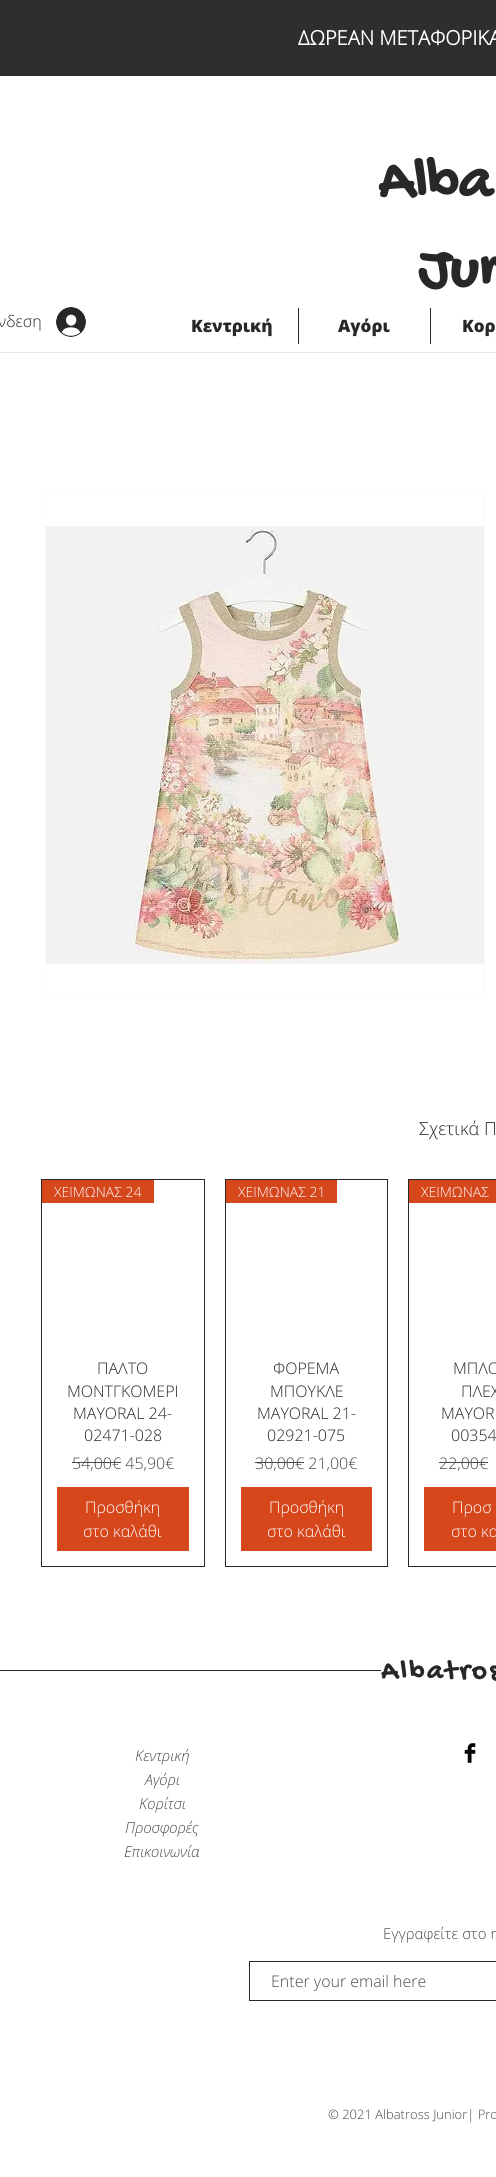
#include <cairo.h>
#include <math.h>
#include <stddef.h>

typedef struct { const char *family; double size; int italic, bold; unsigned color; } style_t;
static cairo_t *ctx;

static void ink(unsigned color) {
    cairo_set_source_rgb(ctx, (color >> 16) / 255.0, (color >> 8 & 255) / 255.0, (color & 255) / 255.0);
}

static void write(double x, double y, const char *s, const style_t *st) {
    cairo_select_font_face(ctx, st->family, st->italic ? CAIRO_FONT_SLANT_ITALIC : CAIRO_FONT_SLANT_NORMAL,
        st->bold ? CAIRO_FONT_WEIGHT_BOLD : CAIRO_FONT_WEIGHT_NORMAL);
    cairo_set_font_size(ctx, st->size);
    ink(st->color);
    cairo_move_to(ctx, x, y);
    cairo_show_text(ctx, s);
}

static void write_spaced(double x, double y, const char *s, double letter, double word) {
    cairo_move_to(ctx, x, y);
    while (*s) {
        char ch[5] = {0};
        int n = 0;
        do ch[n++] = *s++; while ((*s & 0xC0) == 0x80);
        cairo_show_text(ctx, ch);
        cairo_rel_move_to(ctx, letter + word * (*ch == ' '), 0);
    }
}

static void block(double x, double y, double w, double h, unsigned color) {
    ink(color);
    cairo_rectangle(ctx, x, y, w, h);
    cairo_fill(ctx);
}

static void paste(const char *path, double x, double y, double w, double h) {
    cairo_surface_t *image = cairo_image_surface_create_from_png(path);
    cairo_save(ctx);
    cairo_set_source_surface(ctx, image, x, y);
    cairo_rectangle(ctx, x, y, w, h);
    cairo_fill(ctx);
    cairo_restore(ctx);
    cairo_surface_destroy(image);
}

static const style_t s1 = {"Open Sans", 20, 0, 1, 0xffffff};
static const style_t s2 = {"Gochi Hand", 60, 0, 1, 0x282828};
static const style_t s3 = {"Open Sans Light", 16, 0, 0, 0x282828};
static const style_t s4 = {"Open Sans ExtraBold", 17, 0, 0, 0x282828};
static const style_t s5 = {"Open Sans Light", 18, 0, 0, 0x282828};
static const style_t s6 = {"Open Sans Light", 14, 0, 0, 0xffffff};
static const style_t s7 = {"Open Sans Light", 16, 0, 0, 0x494949};
static const style_t s8 = {"Open Sans Light", 16, 0, 0, 0xffffff};
static const style_t s9 = {"Open Sans Light", 15, 1, 0, 0x494949};
static const style_t s10 = {"Open Sans Light", 15, 0, 0, 0x494949};
static const style_t s11 = {"Open Sans Light", 13, 0, 0, 0x494949};

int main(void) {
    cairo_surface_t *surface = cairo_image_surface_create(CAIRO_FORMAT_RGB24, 496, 2177);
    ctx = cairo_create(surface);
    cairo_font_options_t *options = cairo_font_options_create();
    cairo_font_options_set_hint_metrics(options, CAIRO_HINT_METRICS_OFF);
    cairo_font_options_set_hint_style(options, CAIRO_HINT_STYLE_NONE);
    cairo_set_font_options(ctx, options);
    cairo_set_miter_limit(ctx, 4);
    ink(0xffffff);
    cairo_paint(ctx);
    block(0, 0, 496, 76, 0x2e2e2e);
    write(298, 45, "ΔΩΡΕΑΝ ΜΕΤΑΦΟΡΙΚΑ", &s1);
    write(378, 196, "Alba", &s2);
    write(418, 284, "Jun", &s2);
    write(-2, 327, "νδεση", &s3);
    paste("pic1.png", 56, 307, 30, 30);
    write(191, 332, "Κεντρική", &s4);
    block(298, 308, 1, 36, 0x282828);
    write(338, 332, "Αγόρι", &s4);
    block(430, 308, 1, 36, 0x282828);
    write(462, 332, "Κορ", &s4);
    block(0, 352, 496, 1, 0xe7e7e7);
    cairo_rectangle(ctx, 45.5, 495.5, 439, 499);
    ink(0xfafafa);
    cairo_set_line_width(ctx, 1);
    cairo_stroke(ctx);
    paste("pic2.png", 46, 526, 438, 438);
    write(419, 1135, "Σχετικά Π", &s5);
    cairo_rectangle(ctx, 41.5, 1179.5, 163, 387);
    cairo_stroke(ctx);
    block(42, 1180, 112, 23, 0xd6471c);
    write(54, 1197, "ΧΕΙΜΩΝΑΣ 24", &s6);
    write(97, 1374, "ΠΑΛΤΟ", &s3);
    write(67, 1397, "ΜΟΝΤΓΚΟΜΕΡΙ", &s3);
    write(73, 1419, "MAYORAL 24-", &s3);
    write(84, 1441, "02471-028", &s3);
    write(72, 1469, "54,00€ 45,90€", &s7);
    block(72, 1462, 49, 1, 0x494949);
    block(57, 1487, 132, 64, 0xd6471c);
    write(85, 1513, "Προσθήκη", &s8);
    write(83, 1537, "στο καλάθι", &s8);
    cairo_rectangle(ctx, 225.5, 1179.5, 162, 387);
    ink(0x282828);
    cairo_stroke(ctx);
    block(226, 1180, 111, 23, 0xd6471c);
    write(238, 1197, "ΧΕΙΜΩΝΑΣ 21", &s6);
    write(273, 1374, "ΦΟΡΕΜΑ", &s3);
    write(270, 1397, "ΜΠΟΥΚΛΕ", &s3);
    write(257, 1419, "MAYORAL 21-", &s3);
    write(267, 1441, "02921-075", &s3);
    write(255, 1469, "30,00€ 21,00€", &s7);
    block(255, 1462, 49, 1, 0x494949);
    block(241, 1487, 131, 64, 0xd6471c);
    write(269, 1513, "Προσθήκη", &s8);
    write(267, 1537, "στο καλάθι", &s8);
    cairo_rectangle(ctx, 408.5, 1179.5, 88, 387);
    ink(0x282828);
    cairo_stroke(ctx);
    block(409, 1180, 87, 23, 0xd6471c);
    write(421, 1197, "ΧΕΙΜΩΝΑΣ", &s6);
    write(453, 1374, "ΜΠΛΟ", &s3);
    write(461, 1397, "ΠΛΕΧ", &s3);
    write(441, 1419, "MAYOR", &s3);
    write(451, 1441, "00354", &s3);
    write(439, 1469, "22,00€", &s7);
    block(439, 1462, 49, 1, 0x494949);
    block(424, 1487, 72, 64, 0xd6471c);
    write(452, 1513, "Προσ", &s8);
    write(451, 1537, "στο κα", &s8);
    block(0, 1670, 381, 1, 0x282828);
    cairo_select_font_face(ctx, "Gochi Hand", CAIRO_FONT_SLANT_NORMAL, CAIRO_FONT_WEIGHT_BOLD);
    cairo_set_font_size(ctx, 28);
    write_spaced(381, 1678, "Albatros", 2.75, 0);
    write(135, 1761, "Κεντρική", &s9);
    write(145, 1785, "Αγόρι", &s9);
    write(139, 1809, "Κορίτσι", &s9);
    write(125, 1833, "Προσφορές", &s9);
    write(124, 1857, "Επικοινωνία", &s9);
    paste("pic3.png", 464, 1743, 12, 20);
    write(383, 1939, "Εγγραφείτε στο n", &s10);
    cairo_rectangle(ctx, 249.5, 1961.5, 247, 39);
    ink(0x282828);
    cairo_stroke(ctx);
    write(271, 1987, "Enter your email here", &s7);
    write(328, 2119, "© 2021 Albatross Junior| Pro", &s11);
    cairo_surface_write_to_png(surface, "screenshot.png");
    cairo_font_options_destroy(options);
    cairo_destroy(ctx);
    cairo_surface_destroy(surface);
    return 0;
}
